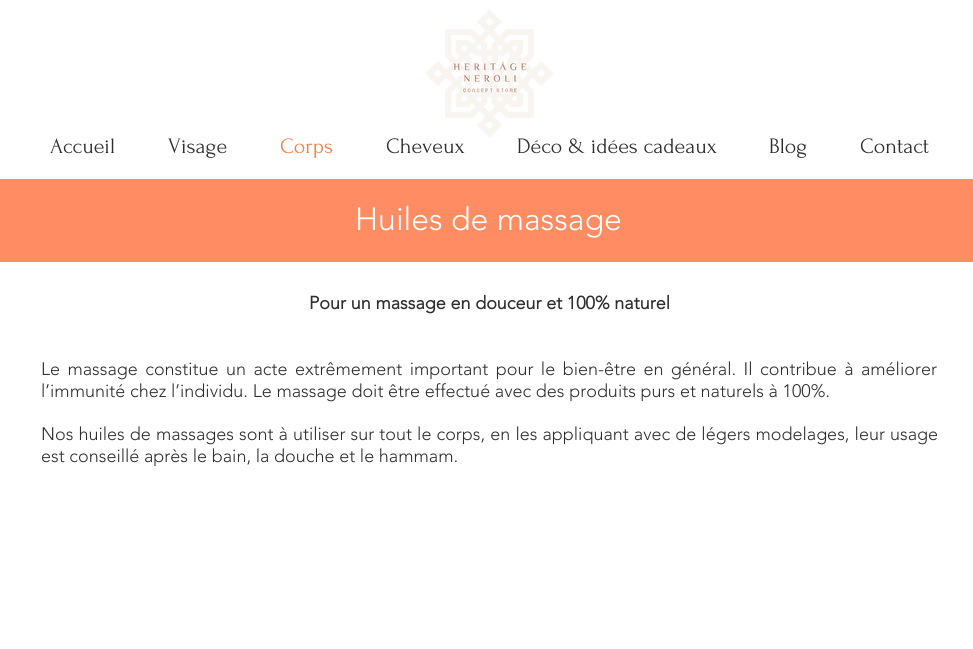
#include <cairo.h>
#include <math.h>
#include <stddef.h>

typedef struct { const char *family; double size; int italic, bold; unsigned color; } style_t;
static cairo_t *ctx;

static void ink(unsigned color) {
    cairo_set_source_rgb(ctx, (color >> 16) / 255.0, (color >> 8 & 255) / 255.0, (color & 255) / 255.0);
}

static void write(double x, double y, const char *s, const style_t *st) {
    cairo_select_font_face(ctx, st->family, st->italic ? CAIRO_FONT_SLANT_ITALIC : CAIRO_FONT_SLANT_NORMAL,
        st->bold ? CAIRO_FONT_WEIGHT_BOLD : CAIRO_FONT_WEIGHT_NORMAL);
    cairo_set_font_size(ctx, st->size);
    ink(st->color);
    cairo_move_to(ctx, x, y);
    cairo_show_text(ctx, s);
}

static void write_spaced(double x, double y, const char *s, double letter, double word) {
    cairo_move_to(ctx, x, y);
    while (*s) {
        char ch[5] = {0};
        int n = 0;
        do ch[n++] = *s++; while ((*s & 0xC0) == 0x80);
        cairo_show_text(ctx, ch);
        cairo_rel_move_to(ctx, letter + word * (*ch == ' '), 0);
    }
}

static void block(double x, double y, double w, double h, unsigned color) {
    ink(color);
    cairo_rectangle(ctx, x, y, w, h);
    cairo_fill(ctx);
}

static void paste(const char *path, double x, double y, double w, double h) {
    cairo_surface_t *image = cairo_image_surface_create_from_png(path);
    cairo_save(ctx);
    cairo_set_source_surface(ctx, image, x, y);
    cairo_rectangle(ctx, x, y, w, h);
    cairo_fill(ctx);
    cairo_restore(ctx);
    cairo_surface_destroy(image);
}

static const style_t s1 = {"Forum", 22, 0, 0, 0x2e2e2e};
static const style_t s2 = {"Forum", 22, 0, 0, 0xf77c40};
static const style_t s3 = {"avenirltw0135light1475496 Light", 32, 0, 0, 0xfffffe};
static const style_t s4 = {"avenirltw0135light1475496", 18, 0, 1, 0x2e2e2e};
static const style_t s5 = {"avenirltw0135light1475496 Light", 18, 0, 0, 0x2e2e2e};

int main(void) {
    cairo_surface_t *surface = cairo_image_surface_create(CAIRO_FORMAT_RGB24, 973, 649);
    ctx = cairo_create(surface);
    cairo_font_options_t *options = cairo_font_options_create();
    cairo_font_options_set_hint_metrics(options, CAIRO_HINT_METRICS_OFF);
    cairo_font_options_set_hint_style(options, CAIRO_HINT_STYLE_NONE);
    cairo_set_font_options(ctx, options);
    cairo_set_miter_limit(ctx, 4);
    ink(0xffffff);
    cairo_paint(ctx);
    paste("pic1.png", 425, 9, 129, 129);
    write(50, 153, "Accueil", &s1);
    write(168, 153, "Visage", &s1);
    write(280, 153, "Corps", &s2);
    write(386, 153, "Cheveux", &s1);
    write(517, 153, "Déco & idées cadeaux", &s1);
    write(769, 153, "Blog", &s1);
    write(860, 153, "Contact", &s1);
    block(0, 179, 973, 83, 0xff8c62);
    write(355, 230, "Huiles de massage", &s3);
    write(309, 309, "Pour un massage en douceur et 100% naturel", &s4);
    cairo_select_font_face(ctx, "avenirltw0135light1475496 Light", CAIRO_FONT_SLANT_NORMAL, CAIRO_FONT_WEIGHT_NORMAL);
    write_spaced(41, 375, "Le massage constitue un acte extrêmement important pour le bien-être en général. Il contribue à améliorer", 0, 2.75);
    write(41, 397, "l’immunité chez l’individu. Le massage doit être effectué avec des produits purs et naturels à 100%.", &s5);
    write_spaced(41, 440, "Nos huiles de massages sont à utiliser sur tout le corps, en les appliquant avec de légers modelages, leur usage", 0, 0.4);
    write(41, 462, "est conseillé après le bain, la douche et le hammam.", &s5);
    cairo_surface_write_to_png(surface, "screenshot.png");
    cairo_font_options_destroy(options);
    cairo_destroy(ctx);
    cairo_surface_destroy(surface);
    return 0;
}
